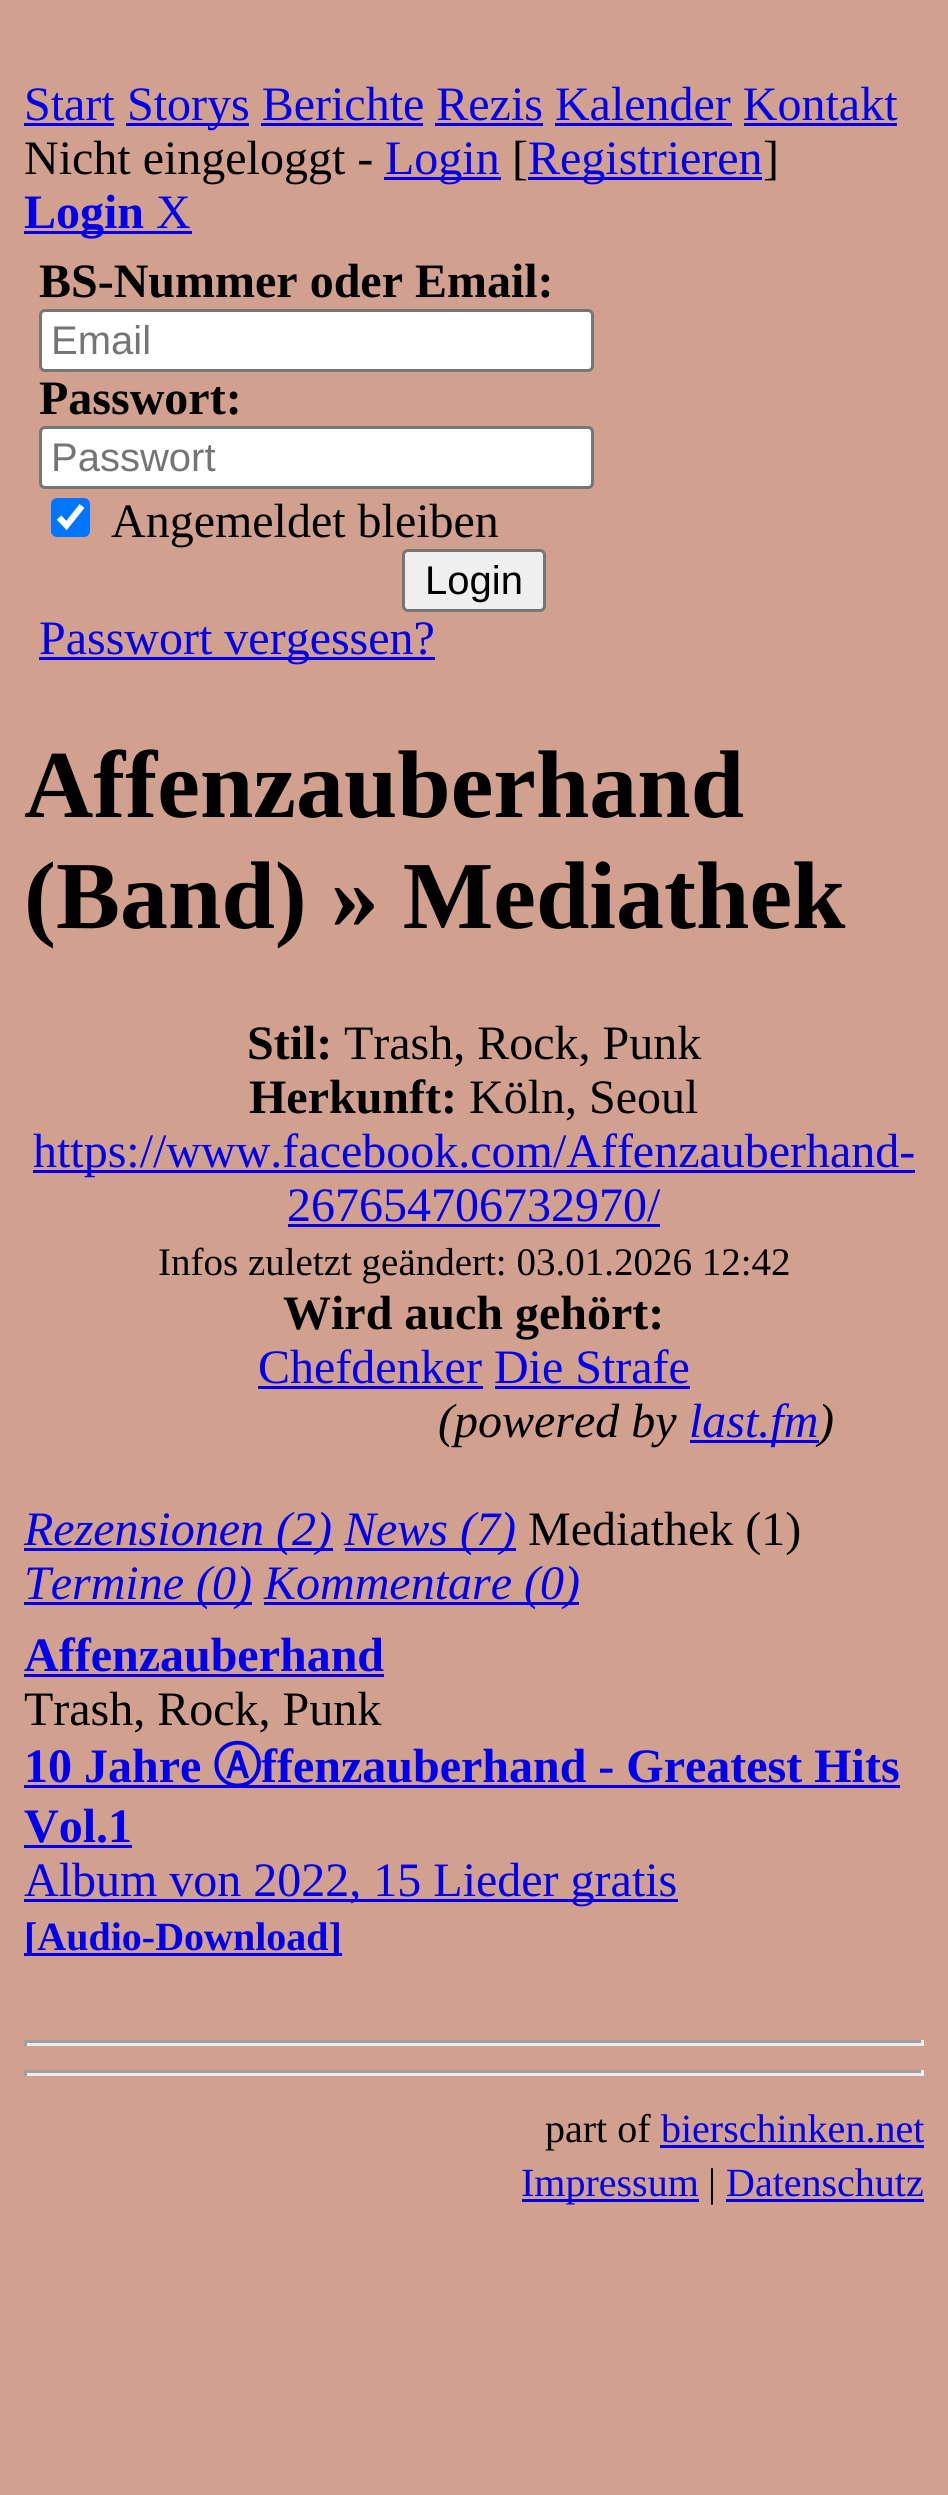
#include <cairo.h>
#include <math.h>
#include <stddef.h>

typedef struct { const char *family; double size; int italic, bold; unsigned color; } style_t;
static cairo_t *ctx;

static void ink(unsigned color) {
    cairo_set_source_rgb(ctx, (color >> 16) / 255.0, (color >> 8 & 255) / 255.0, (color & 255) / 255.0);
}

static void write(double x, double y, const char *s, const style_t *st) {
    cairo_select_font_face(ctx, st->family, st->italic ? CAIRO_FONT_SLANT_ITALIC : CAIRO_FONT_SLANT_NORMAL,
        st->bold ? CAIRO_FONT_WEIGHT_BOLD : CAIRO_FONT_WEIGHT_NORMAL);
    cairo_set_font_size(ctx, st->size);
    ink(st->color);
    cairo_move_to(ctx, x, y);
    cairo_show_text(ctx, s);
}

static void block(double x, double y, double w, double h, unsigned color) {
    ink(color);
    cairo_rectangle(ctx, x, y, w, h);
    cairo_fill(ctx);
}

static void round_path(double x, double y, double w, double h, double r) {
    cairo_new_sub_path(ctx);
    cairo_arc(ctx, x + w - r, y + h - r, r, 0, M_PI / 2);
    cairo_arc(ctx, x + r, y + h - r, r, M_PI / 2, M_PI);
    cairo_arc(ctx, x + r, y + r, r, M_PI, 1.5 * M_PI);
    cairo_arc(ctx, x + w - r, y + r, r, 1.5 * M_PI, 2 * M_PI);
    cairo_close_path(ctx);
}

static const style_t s1 = {"Liberation Serif", 48, 0, 0, 0x0000ee};
static const style_t s2 = {"Liberation Serif", 48, 0, 0, 0x000000};
static const style_t s3 = {"Liberation Serif", 48, 0, 1, 0x0000ee};
static const style_t s4 = {"Liberation Serif", 48, 0, 1, 0x000000};
static const style_t s5 = {"Liberation Sans", 40, 0, 0, 0x757575};
static const style_t s6 = {"Liberation Sans", 40, 0, 0, 0x000000};
static const style_t s7 = {"Liberation Serif", 96, 0, 1, 0x000000};
static const style_t s8 = {"Liberation Serif", 39, 0, 0, 0x000000};
static const style_t s9 = {"Liberation Serif", 48, 1, 0, 0x000000};
static const style_t s10 = {"Liberation Serif", 48, 1, 0, 0x0000ee};
static const style_t s11 = {"WenQuanYi Zen Hei", 48, 0, 1, 0x0000ee};
static const style_t s12 = {"Liberation Serif", 40, 0, 1, 0x0000ee};
static const style_t s13 = {"Liberation Serif", 40, 0, 0, 0x000000};
static const style_t s14 = {"Liberation Serif", 40, 0, 0, 0x0000ee};

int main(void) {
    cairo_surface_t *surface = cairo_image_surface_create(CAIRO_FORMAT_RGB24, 948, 2495);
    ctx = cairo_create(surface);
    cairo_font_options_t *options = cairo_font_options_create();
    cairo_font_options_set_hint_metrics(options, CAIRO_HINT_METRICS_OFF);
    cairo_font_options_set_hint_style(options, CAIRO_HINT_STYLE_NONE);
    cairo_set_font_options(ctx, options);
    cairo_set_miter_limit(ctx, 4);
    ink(0xd1a08f);
    cairo_paint(ctx);
    write(24, 120, "Start", &s1);
    block(24, 123, 90, 3, 0x0000ee);
    block(126, 123, 123, 3, 0x0000ee);
    write(127, 120, "Storys Berichte Rezis Kalender Kontakt", &s1);
    block(261, 123, 162, 3, 0x0000ee);
    block(435, 123, 108, 3, 0x0000ee);
    block(555, 123, 177, 3, 0x0000ee);
    block(744, 123, 153, 3, 0x0000ee);
    write(24, 174, "Nicht eingeloggt -", &s2);
    block(384, 177, 117, 3, 0x0000ee);
    write(385, 174, "Login", &s1);
    write(512, 174, "[", &s2);
    block(528, 177, 234, 3, 0x0000ee);
    write(528, 174, "Registrieren", &s1);
    write(763, 174, "]", &s2);
    block(24, 231, 168, 3, 0x0000ee);
    write(24, 228, "Login", &s3);
    write(156, 228, "X", &s1);
    write(39, 297, "BS-Nummer oder Email:", &s4);
    ink(0xffffff);
    round_path(40.5, 310.5, 552, 60, 4.5);
    cairo_fill_preserve(ctx);
    ink(0x767676);
    cairo_set_line_width(ctx, 3);
    cairo_stroke(ctx);
    write(51, 354, "Email", &s5);
    write(39, 414, "Passwort:", &s4);
    ink(0xffffff);
    round_path(40.5, 427.5, 552, 60, 4.5);
    cairo_fill_preserve(ctx);
    ink(0x767676);
    cairo_stroke(ctx);
    write(51, 471, "Passwort", &s5);
    ink(0x0075ff);
    round_path(51, 498, 39, 39, 6);
    cairo_fill(ctx);
    cairo_new_path(ctx);
    cairo_move_to(ctx, 59, 517.5);
    cairo_line_to(ctx, 66.5, 525.5);
    cairo_line_to(ctx, 82, 506);
    ink(0xffffff);
    cairo_set_line_width(ctx, 6.2);
    cairo_stroke(ctx);
    write(111, 537, "Angemeldet bleiben", &s2);
    ink(0xefefef);
    round_path(403.5, 550.5, 141, 60, 4.5);
    cairo_fill_preserve(ctx);
    ink(0x767676);
    cairo_set_line_width(ctx, 3);
    cairo_stroke(ctx);
    write(425, 594, "Login", &s6);
    block(39, 657, 396, 3, 0x0000ee);
    write(39, 654, "Passwort vergessen?", &s1);
    write(24, 817, "Affenzauberhand", &s7);
    write(24, 928, "(Band) » Mediathek", &s7);
    write(247, 1059, "Stil:", &s4);
    write(344, 1059, "Trash, Rock, Punk", &s2);
    write(249, 1113, "Herkunft:", &s4);
    write(469, 1113, "Köln, Seoul", &s2);
    block(33, 1170, 882, 3, 0x0000ee);
    write(33, 1167, "https://www.facebook.com/Affenzauberhand-", &s1);
    write(287, 1221, "267654706732970/", &s1);
    block(288, 1224, 372, 3, 0x0000ee);
    write(158, 1275, "Infos zuletzt geändert: 03.01.2026 12:42", &s8);
    write(283, 1329, "Wird auch gehört:", &s4);
    write(258, 1383, "Chefdenker Die Strafe", &s1);
    block(258, 1386, 225, 3, 0x0000ee);
    block(495, 1386, 195, 3, 0x0000ee);
    write(438, 1437, "(powered by", &s9);
    block(690, 1440, 129, 3, 0x0000ee);
    write(689, 1437, "last.fm", &s10);
    write(818, 1437, ")", &s9);
    block(24, 1548, 309, 3, 0x0000ee);
    write(24, 1545, "Rezensionen (2)", &s10);
    block(345, 1548, 171, 3, 0x0000ee);
    write(344, 1545, "News (7)", &s10);
    write(528, 1545, "Mediathek (1)", &s2);
    block(24, 1602, 228, 3, 0x0000ee);
    write(24, 1599, "Termine (0)", &s10);
    block(264, 1602, 315, 3, 0x0000ee);
    write(264, 1599, "Kommentare (0)", &s10);
    write(24, 1671, "Affenzauberhand", &s3);
    block(24, 1674, 360, 3, 0x0000ee);
    write(24, 1725, "Trash, Rock, Punk", &s2);
    write(24, 1782, "10 Jahre", &s3);
    block(24, 1785, 876, 3, 0x0000ee);
    write(213, 1782, "Ⓐ", &s11);
    write(261, 1782, "ffenzauberhand - Greatest Hits", &s3);
    write(24, 1842, "Vol.1", &s3);
    block(24, 1845, 108, 3, 0x0000ee);
    block(24, 1899, 654, 3, 0x0000ee);
    write(24, 1896, "Album von 2022, 15 Lieder gratis", &s1);
    block(24, 1953, 318, 3, 0x0000ee);
    write(24, 1950, "[Audio-Download]", &s12);
    block(24, 2040, 900, 3, 0x9f9f9f);
    block(921, 2040, 3, 6, 0xeeeeee);
    block(24, 2043, 900, 3, 0xeeeeee);
    block(24, 2040, 3, 6, 0x9f9f9f);
    block(24, 2070, 900, 3, 0x9f9f9f);
    block(921, 2070, 3, 6, 0xeeeeee);
    block(24, 2073, 900, 3, 0xeeeeee);
    block(24, 2070, 3, 6, 0x9f9f9f);
    write(545, 2142, "part of", &s13);
    write(661, 2142, "bierschinken.net", &s14);
    block(660, 2145, 264, 3, 0x0000ee);
    block(522, 2199, 177, 3, 0x0000ee);
    write(521, 2196, "Impressum", &s14);
    write(708, 2196, "|", &s13);
    write(726, 2196, "Datenschutz", &s14);
    block(726, 2199, 198, 3, 0x0000ee);
    cairo_surface_write_to_png(surface, "screenshot.png");
    cairo_font_options_destroy(options);
    cairo_destroy(ctx);
    cairo_surface_destroy(surface);
    return 0;
}
